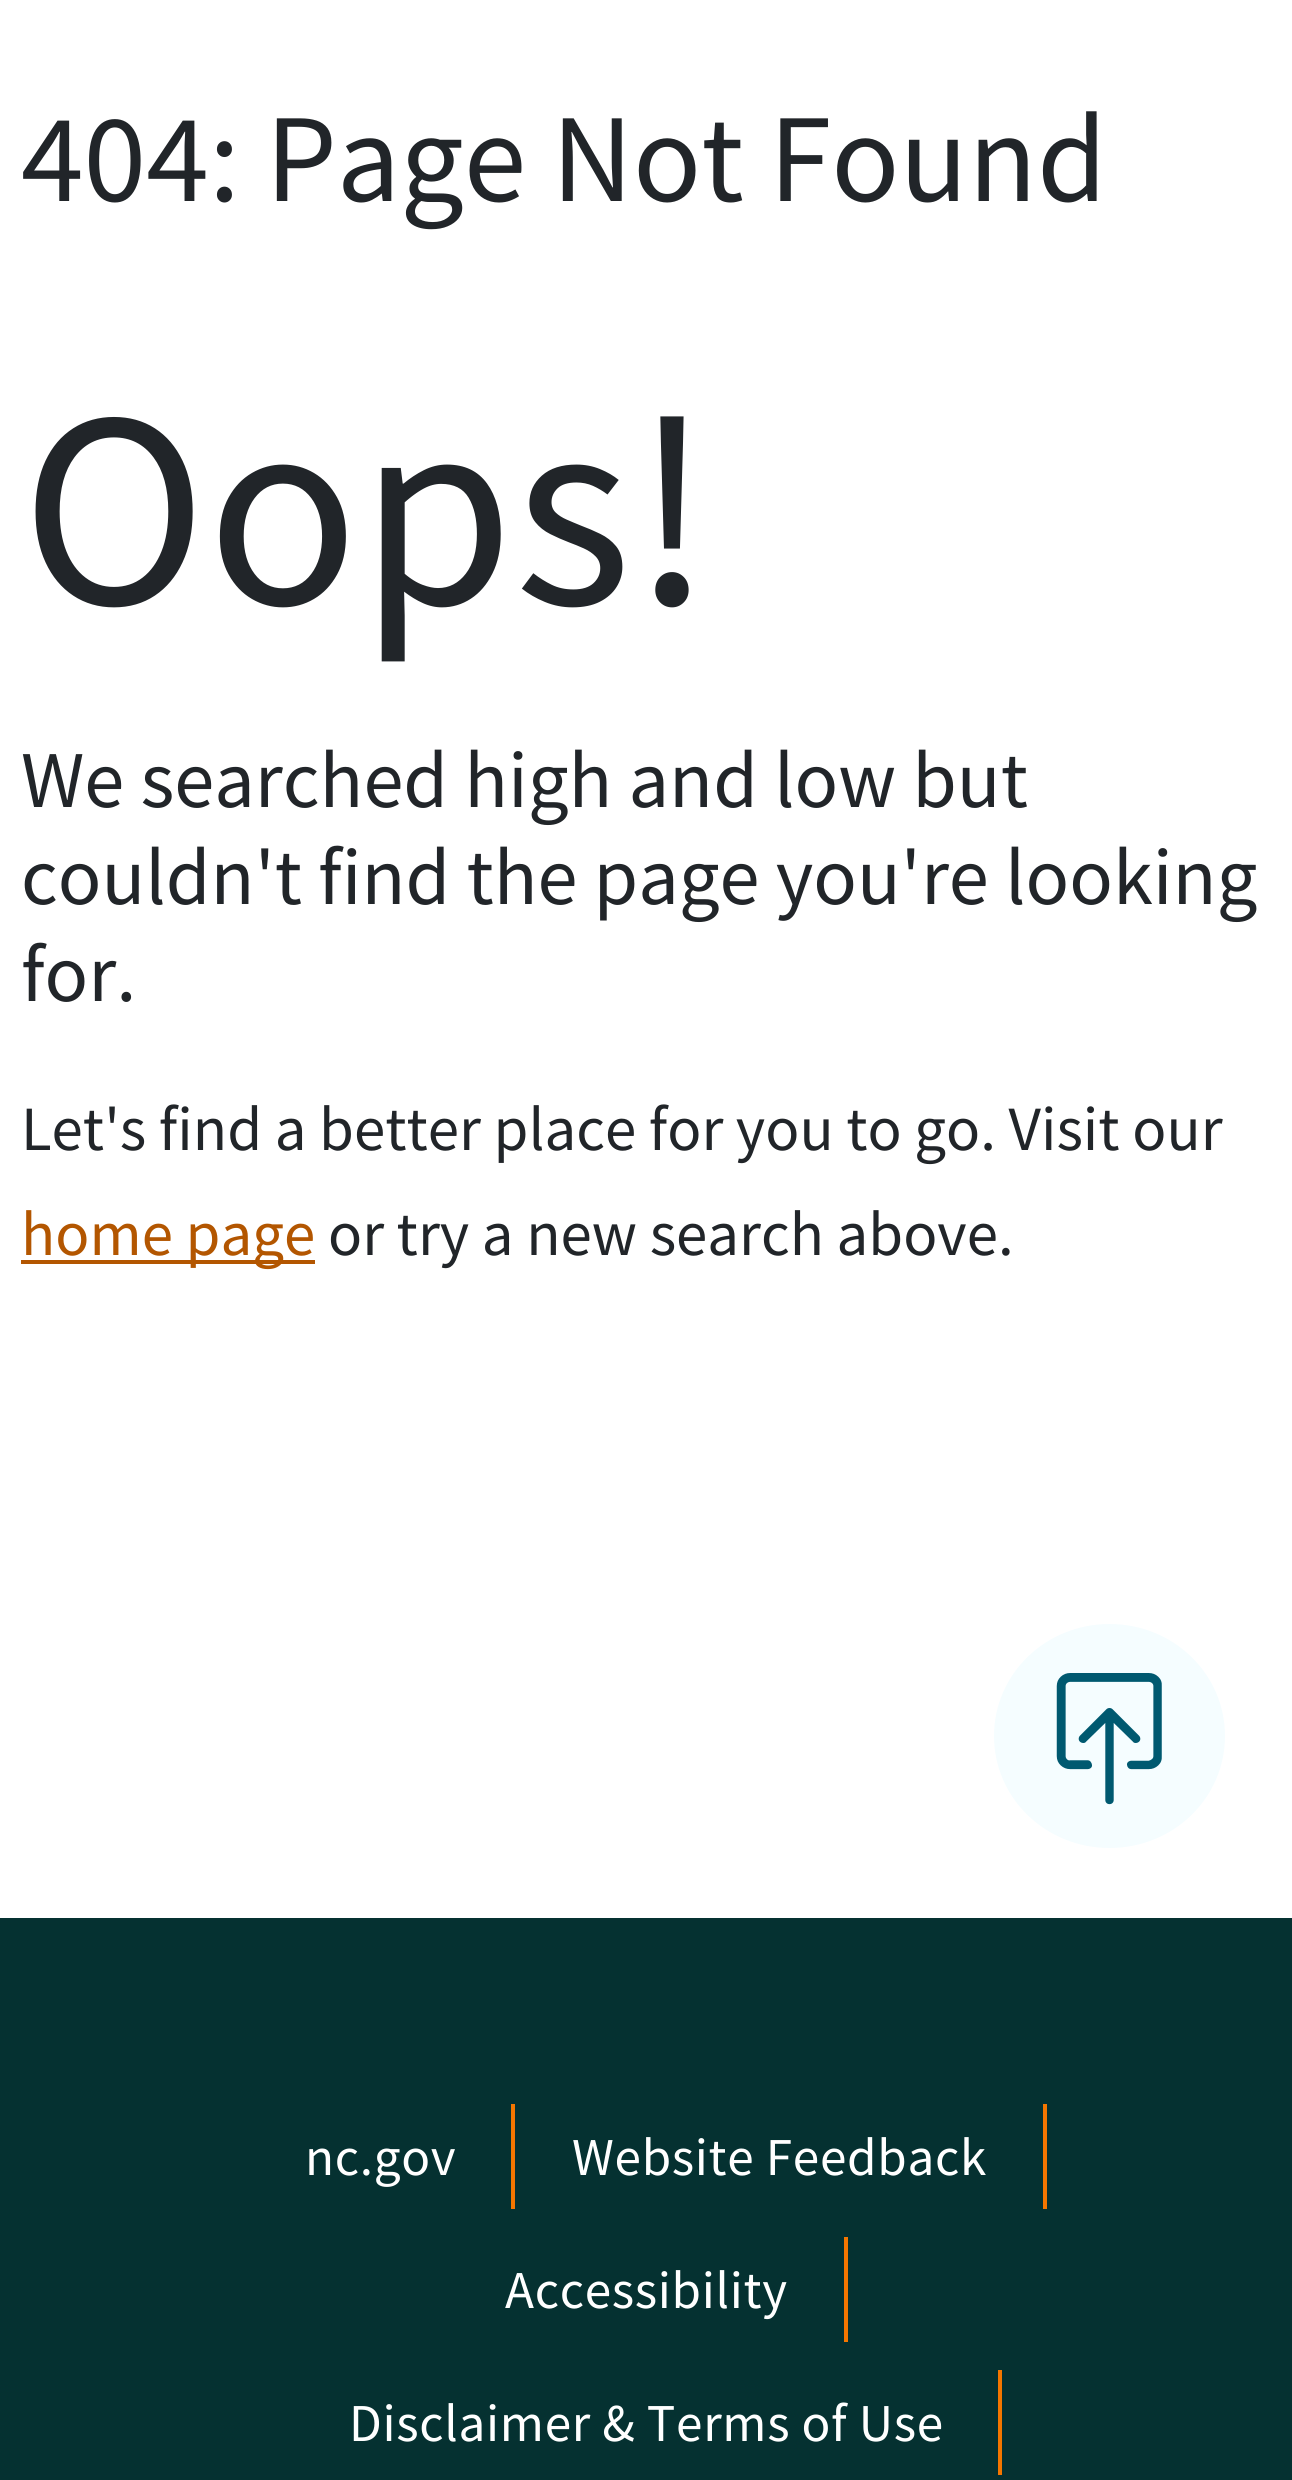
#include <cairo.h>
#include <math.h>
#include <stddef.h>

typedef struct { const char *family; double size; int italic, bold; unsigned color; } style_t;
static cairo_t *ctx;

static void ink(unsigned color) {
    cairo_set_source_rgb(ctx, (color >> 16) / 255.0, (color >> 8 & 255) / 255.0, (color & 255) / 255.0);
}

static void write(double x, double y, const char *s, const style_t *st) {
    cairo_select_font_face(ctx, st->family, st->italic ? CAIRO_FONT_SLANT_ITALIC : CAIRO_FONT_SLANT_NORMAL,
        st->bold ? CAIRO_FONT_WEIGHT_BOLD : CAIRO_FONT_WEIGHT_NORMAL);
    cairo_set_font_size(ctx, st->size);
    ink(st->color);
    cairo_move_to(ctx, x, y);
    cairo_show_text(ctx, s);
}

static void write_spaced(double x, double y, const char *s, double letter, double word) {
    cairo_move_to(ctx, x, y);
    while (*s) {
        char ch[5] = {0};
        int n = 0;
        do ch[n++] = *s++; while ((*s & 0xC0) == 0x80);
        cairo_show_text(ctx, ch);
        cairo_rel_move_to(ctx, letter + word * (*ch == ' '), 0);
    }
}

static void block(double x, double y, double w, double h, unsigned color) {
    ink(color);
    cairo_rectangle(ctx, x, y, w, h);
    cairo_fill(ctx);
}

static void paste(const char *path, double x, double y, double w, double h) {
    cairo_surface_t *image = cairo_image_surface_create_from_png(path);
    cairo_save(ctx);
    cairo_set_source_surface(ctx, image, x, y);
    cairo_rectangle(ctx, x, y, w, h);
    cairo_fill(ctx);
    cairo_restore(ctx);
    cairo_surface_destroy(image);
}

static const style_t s1 = {"Source Sans Pro", 126, 0, 0, 0x212529};
static const style_t s2 = {"Source Sans Pro", 280, 0, 0, 0x212529};
static const style_t s3 = {"Source Sans Pro", 80.6, 0, 0, 0x212529};
static const style_t s4 = {"Source Sans Pro", 63, 0, 0, 0x212529};
static const style_t s5 = {"Source Sans Pro", 63, 0, 0, 0xb35600};

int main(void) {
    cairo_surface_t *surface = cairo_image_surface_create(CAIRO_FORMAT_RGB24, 1292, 2480);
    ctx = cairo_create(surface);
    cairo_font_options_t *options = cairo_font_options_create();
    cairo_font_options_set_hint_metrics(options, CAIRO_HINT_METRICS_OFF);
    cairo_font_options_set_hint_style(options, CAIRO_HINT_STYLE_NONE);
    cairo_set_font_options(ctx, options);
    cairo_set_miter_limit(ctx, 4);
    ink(0xffffff);
    cairo_paint(ctx);
    write(21, 201, "404: Page Not Found", &s1);
    write(21, 604, "Oops!", &s2);
    write(21, 807, "We searched high and low but", &s3);
    write(21, 904, "couldn't find the page you're looking", &s3);
    write(21, 1001, "for.", &s3);
    write(21, 1150, "Let's find a better place for you to go. Visit our", &s4);
    block(21, 1260, 294, 4, 0xb35600);
    write(21, 1255, "home page", &s5);
    write(328, 1255, "or try a new search above.", &s4);
    ink(0xf5fdff);
    cairo_new_path(ctx);
    cairo_move_to(ctx, 1109.5, 1624);
    cairo_curve_to(ctx, 1173.5, 1624, 1225, 1674, 1225, 1736);
    cairo_curve_to(ctx, 1225, 1798, 1173.5, 1848, 1109.5, 1848);
    cairo_curve_to(ctx, 1045.5, 1848, 994, 1798, 994, 1736);
    cairo_curve_to(ctx, 994, 1674, 1045.5, 1624, 1109.5, 1624);
    cairo_close_path(ctx);
    cairo_fill(ctx);
    paste("pic1.png", 1056, 1673, 106, 132);
    block(0, 1918, 1292, 562, 0x053131);
    block(511, 2104, 4, 105, 0xf57600);
    cairo_set_font_size(ctx, 53.25);
    ink(0xffffff);
    write_spaced(305, 2175, "nc.gov", 0.7, 0);
    block(1043, 2104, 4, 105, 0xf57600);
    ink(0xffffff);
    write_spaced(572, 2175, "Website Feedback", 0.7, 0);
    block(844, 2237, 4, 105, 0xf57600);
    ink(0xffffff);
    write_spaced(505, 2308, "Accessibility", 0.7, 0);
    block(998, 2370, 4, 105, 0xf57600);
    ink(0xffffff);
    write_spaced(349, 2441, "Disclaimer & Terms of Use", 0.7, 0);
    cairo_surface_write_to_png(surface, "screenshot.png");
    cairo_font_options_destroy(options);
    cairo_destroy(ctx);
    cairo_surface_destroy(surface);
    return 0;
}
